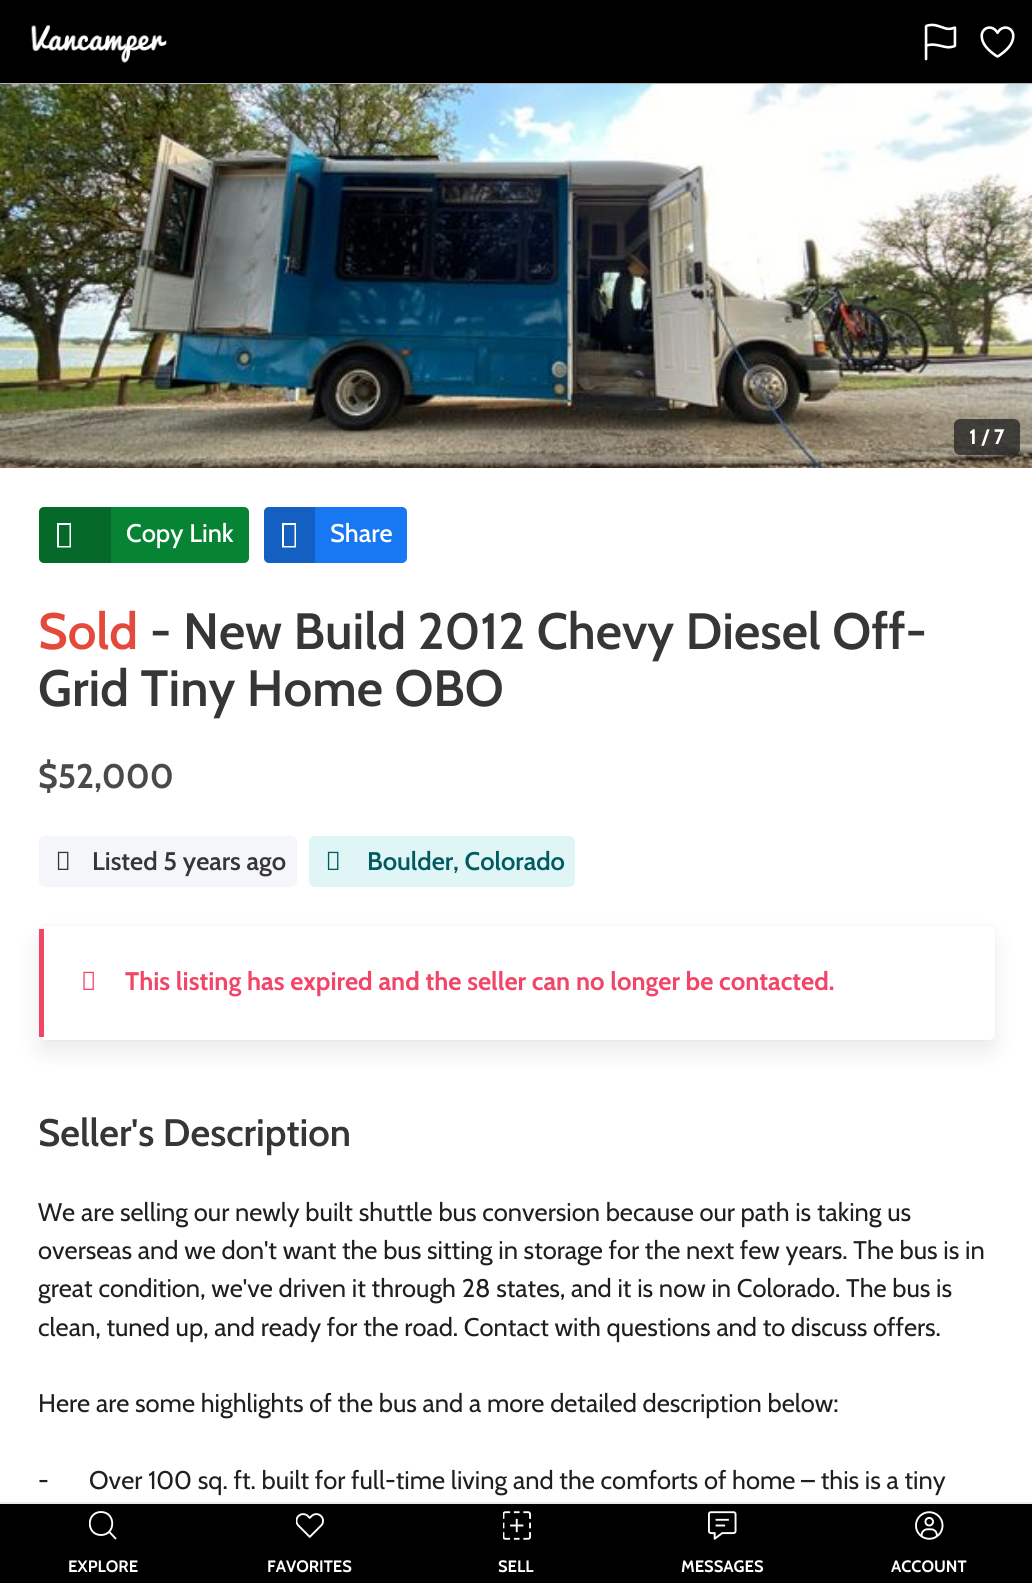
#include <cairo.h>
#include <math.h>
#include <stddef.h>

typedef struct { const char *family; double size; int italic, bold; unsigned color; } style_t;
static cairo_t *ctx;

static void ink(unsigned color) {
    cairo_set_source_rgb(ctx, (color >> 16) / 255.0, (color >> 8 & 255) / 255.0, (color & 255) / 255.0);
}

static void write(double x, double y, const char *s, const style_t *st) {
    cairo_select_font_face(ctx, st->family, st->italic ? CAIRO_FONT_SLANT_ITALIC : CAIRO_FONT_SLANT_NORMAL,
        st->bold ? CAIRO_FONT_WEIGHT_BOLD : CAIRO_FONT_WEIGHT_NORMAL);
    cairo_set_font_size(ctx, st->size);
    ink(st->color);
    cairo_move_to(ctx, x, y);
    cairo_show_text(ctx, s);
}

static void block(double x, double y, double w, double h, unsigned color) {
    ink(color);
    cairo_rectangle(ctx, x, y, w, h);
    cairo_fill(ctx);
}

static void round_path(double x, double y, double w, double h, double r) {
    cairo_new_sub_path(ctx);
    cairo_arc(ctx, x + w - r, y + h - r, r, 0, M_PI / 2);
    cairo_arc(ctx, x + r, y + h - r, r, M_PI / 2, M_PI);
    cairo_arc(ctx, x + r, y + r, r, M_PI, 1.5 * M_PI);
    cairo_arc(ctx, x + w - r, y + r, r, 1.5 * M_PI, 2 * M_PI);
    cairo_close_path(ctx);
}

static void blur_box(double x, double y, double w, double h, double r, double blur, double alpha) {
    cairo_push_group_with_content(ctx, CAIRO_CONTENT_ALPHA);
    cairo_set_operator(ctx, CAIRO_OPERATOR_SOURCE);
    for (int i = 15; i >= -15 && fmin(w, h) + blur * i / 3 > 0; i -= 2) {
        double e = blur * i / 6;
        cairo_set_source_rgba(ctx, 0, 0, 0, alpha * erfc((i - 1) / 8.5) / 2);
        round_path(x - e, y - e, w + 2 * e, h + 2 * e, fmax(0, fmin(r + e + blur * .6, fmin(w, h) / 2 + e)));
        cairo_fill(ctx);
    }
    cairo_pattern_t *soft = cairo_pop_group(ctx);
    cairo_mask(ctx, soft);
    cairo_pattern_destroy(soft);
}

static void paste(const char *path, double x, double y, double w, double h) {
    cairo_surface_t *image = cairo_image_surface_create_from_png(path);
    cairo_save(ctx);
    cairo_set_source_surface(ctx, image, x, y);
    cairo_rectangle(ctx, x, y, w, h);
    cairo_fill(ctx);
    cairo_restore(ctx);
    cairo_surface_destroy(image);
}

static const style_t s1 = {"Cabin", 21, 0, 1, 0xffffff};
static const style_t s2 = {"Cabin Medium", 25.5, 0, 0, 0xffffff};
static const style_t s3 = {"Cabin SemiBold", 51, 0, 0, 0xe34a3b};
static const style_t s4 = {"Cabin SemiBold", 51, 0, 0, 0x363636};
static const style_t s5 = {"Cabin", 34, 0, 1, 0x4a4a4a};
static const style_t s6 = {"Cabin SemiBold", 25.5, 0, 0, 0x363636};
static const style_t s7 = {"Cabin SemiBold", 25.5, 0, 0, 0x005a61};
static const style_t s8 = {"Cabin", 25.5, 0, 1, 0xf14668};
static const style_t s9 = {"Cabin SemiBold", 38.25, 0, 0, 0x363636};
static const style_t s10 = {"Cabin", 25.5, 0, 0, 0x1f1f21};
static const style_t s11 = {"Cabin", 16.5, 0, 1, 0xffffff};

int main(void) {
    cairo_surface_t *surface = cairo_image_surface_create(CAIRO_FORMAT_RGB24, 1032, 1583);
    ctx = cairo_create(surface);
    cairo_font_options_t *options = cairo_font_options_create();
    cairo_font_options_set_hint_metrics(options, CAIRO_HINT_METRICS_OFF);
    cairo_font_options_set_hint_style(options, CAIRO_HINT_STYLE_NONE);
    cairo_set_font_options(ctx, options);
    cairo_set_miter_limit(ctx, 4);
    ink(0xffffff);
    cairo_paint(ctx);
    block(0, 0, 1032, 83, 0x000000);
    block(0, 83, 1032, 1, 0xb2b2b2);
    paste("pic1.png", 31, 25, 136, 38);
    paste("pic2.png", 924, 23, 33, 38);
    paste("pic3.png", 980, 26, 35, 32);
    paste("pic4.png", 0, 84, 1032, 384);
    cairo_set_source_rgba(ctx, 0.133, 0.133, 0.133, 0.75);
    round_path(954, 419, 66, 36, 6);
    cairo_fill(ctx);
    write(969, 444, "1 / 7", &s1);
    ink(0x068433);
    round_path(39, 507, 210, 56, 5);
    cairo_fill(ctx);
    cairo_set_source_rgba(ctx, 0, 0, 0, 0.2);
    cairo_new_path(ctx);
    cairo_move_to(ctx, 44, 507);
    cairo_line_to(ctx, 111, 507);
    cairo_line_to(ctx, 111, 563);
    cairo_line_to(ctx, 44, 563);
    cairo_curve_to(ctx, 41, 563, 39, 561, 39, 558);
    cairo_line_to(ctx, 39, 512);
    cairo_curve_to(ctx, 39, 509, 41, 507, 44, 507);
    cairo_close_path(ctx);
    cairo_fill(ctx);
    ink(0xffffff);
    cairo_new_path(ctx);
    cairo_move_to(ctx, 57, 547.5);
    cairo_line_to(ctx, 57, 523);
    cairo_line_to(ctx, 71, 523);
    cairo_line_to(ctx, 71, 547.5);
    cairo_close_path(ctx);
    cairo_move_to(ctx, 59, 546);
    cairo_line_to(ctx, 69.5, 546);
    cairo_line_to(ctx, 69.5, 525);
    cairo_line_to(ctx, 59, 525);
    cairo_close_path(ctx);
    cairo_fill(ctx);
    write(126, 542, "Copy Link", &s2);
    ink(0x1877f2);
    round_path(264, 507, 143, 56, 5);
    cairo_fill(ctx);
    cairo_set_source_rgba(ctx, 0, 0, 0, 0.2);
    cairo_new_path(ctx);
    cairo_move_to(ctx, 269, 507);
    cairo_line_to(ctx, 315, 507);
    cairo_line_to(ctx, 315, 563);
    cairo_line_to(ctx, 269, 563);
    cairo_curve_to(ctx, 266, 563, 264, 561, 264, 558);
    cairo_line_to(ctx, 264, 512);
    cairo_curve_to(ctx, 264, 509, 266, 507, 269, 507);
    cairo_close_path(ctx);
    cairo_fill(ctx);
    ink(0xffffff);
    cairo_new_path(ctx);
    cairo_move_to(ctx, 282, 547.5);
    cairo_line_to(ctx, 282, 523);
    cairo_line_to(ctx, 296, 523);
    cairo_line_to(ctx, 296, 547.5);
    cairo_close_path(ctx);
    cairo_move_to(ctx, 284, 546);
    cairo_line_to(ctx, 294.5, 546);
    cairo_line_to(ctx, 294.5, 525);
    cairo_line_to(ctx, 284, 525);
    cairo_close_path(ctx);
    cairo_fill(ctx);
    write(330, 542, "Share", &s2);
    write(38, 649, "Sold", &s3);
    write(150, 649, "- New Build 2012 Chevy Diesel Off-", &s4);
    write(38, 706, "Grid Tiny Home OBO", &s4);
    write(38, 788, "$52,000", &s5);
    ink(0xf4f6fa);
    round_path(39, 836, 258, 51, 6);
    cairo_fill(ctx);
    paste("pic5.png", 57, 851, 12, 19);
    write(92, 870, "Listed 5 years ago", &s6);
    ink(0xe0f5f5);
    round_path(309, 836, 266, 51, 6);
    cairo_fill(ctx);
    paste("pic6.png", 327, 851, 12, 19);
    write(367, 870, "Boulder, Colorado", &s7);
    round_path(39, 925, 956, 115, 7);
    ink(0xfafafa);
    cairo_stroke(ctx);
    ink(0x0a0a0a);
    blur_box(42, 942, 950, 107, 3, 13, 0.1);
    ink(0xffffff);
    round_path(39, 926, 956, 114, 6);
    cairo_fill(ctx);
    block(39, 929, 5, 108, 0xf14668);
    paste("pic7.png", 83, 971, 11, 19);
    write(125, 990, "This listing has expired and the seller can no longer be contacted.", &s8);
    write(38, 1146, "Seller's Description", &s9);
    write(38, 1221, "We are selling our newly built shuttle bus conversion because our path is taking us", &s10);
    write(38, 1259, "overseas and we don't want the bus sitting in storage for the next few years. The bus is in", &s10);
    write(38, 1297, "great condition, we've driven it through 28 states, and it is now in Colorado. The bus is", &s10);
    write(38, 1336, "clean, tuned up, and ready for the road. Contact with questions and to discuss offers.", &s10);
    write(38, 1412, "Here are some highlights of the bus and a more detailed description below:", &s10);
    write(38, 1489, "-       Over 100 sq. ft. built for full-time living and the comforts of home – this is a tiny", &s10);
    block(0, 1504, 1032, 79, 0x000000);
    block(0, 1502, 1032, 2, 0xeaecef);
    cairo_save(ctx);
    cairo_rectangle(ctx, 89, 1503, 28, 45);
    cairo_clip(ctx);
    cairo_new_path(ctx);
    cairo_move_to(ctx, 116, 1539);
    cairo_line_to(ctx, 108.5, 1531);
    cairo_move_to(ctx, 101, 1535);
    cairo_curve_to(ctx, 86, 1535, 86, 1512, 101, 1512);
    cairo_curve_to(ctx, 116, 1512, 116, 1535, 101, 1535);
    cairo_close_path(ctx);
    ink(0xffffff);
    cairo_set_line_width(ctx, 1.9);
    cairo_stroke(ctx);
    cairo_restore(ctx);
    write(68, 1572, "EXPLORE", &s11);
    paste("pic8.png", 296, 1513, 28, 25);
    write(267, 1572, "FAVORITES", &s11);
    paste("pic9.png", 503, 1511, 28, 29);
    write(498, 1572, "SELL", &s11);
    paste("pic10.png", 708, 1511, 29, 29);
    write(681, 1572, "MESSAGES", &s11);
    paste("pic11.png", 915, 1511, 29, 29);
    cairo_save(ctx);
    cairo_rectangle(ctx, 891, 1551, 75, 32);
    cairo_clip(ctx);
    write(891, 1572, "ACCOUNT", &s11);
    cairo_restore(ctx);
    cairo_surface_write_to_png(surface, "screenshot.png");
    cairo_font_options_destroy(options);
    cairo_destroy(ctx);
    cairo_surface_destroy(surface);
    return 0;
}
